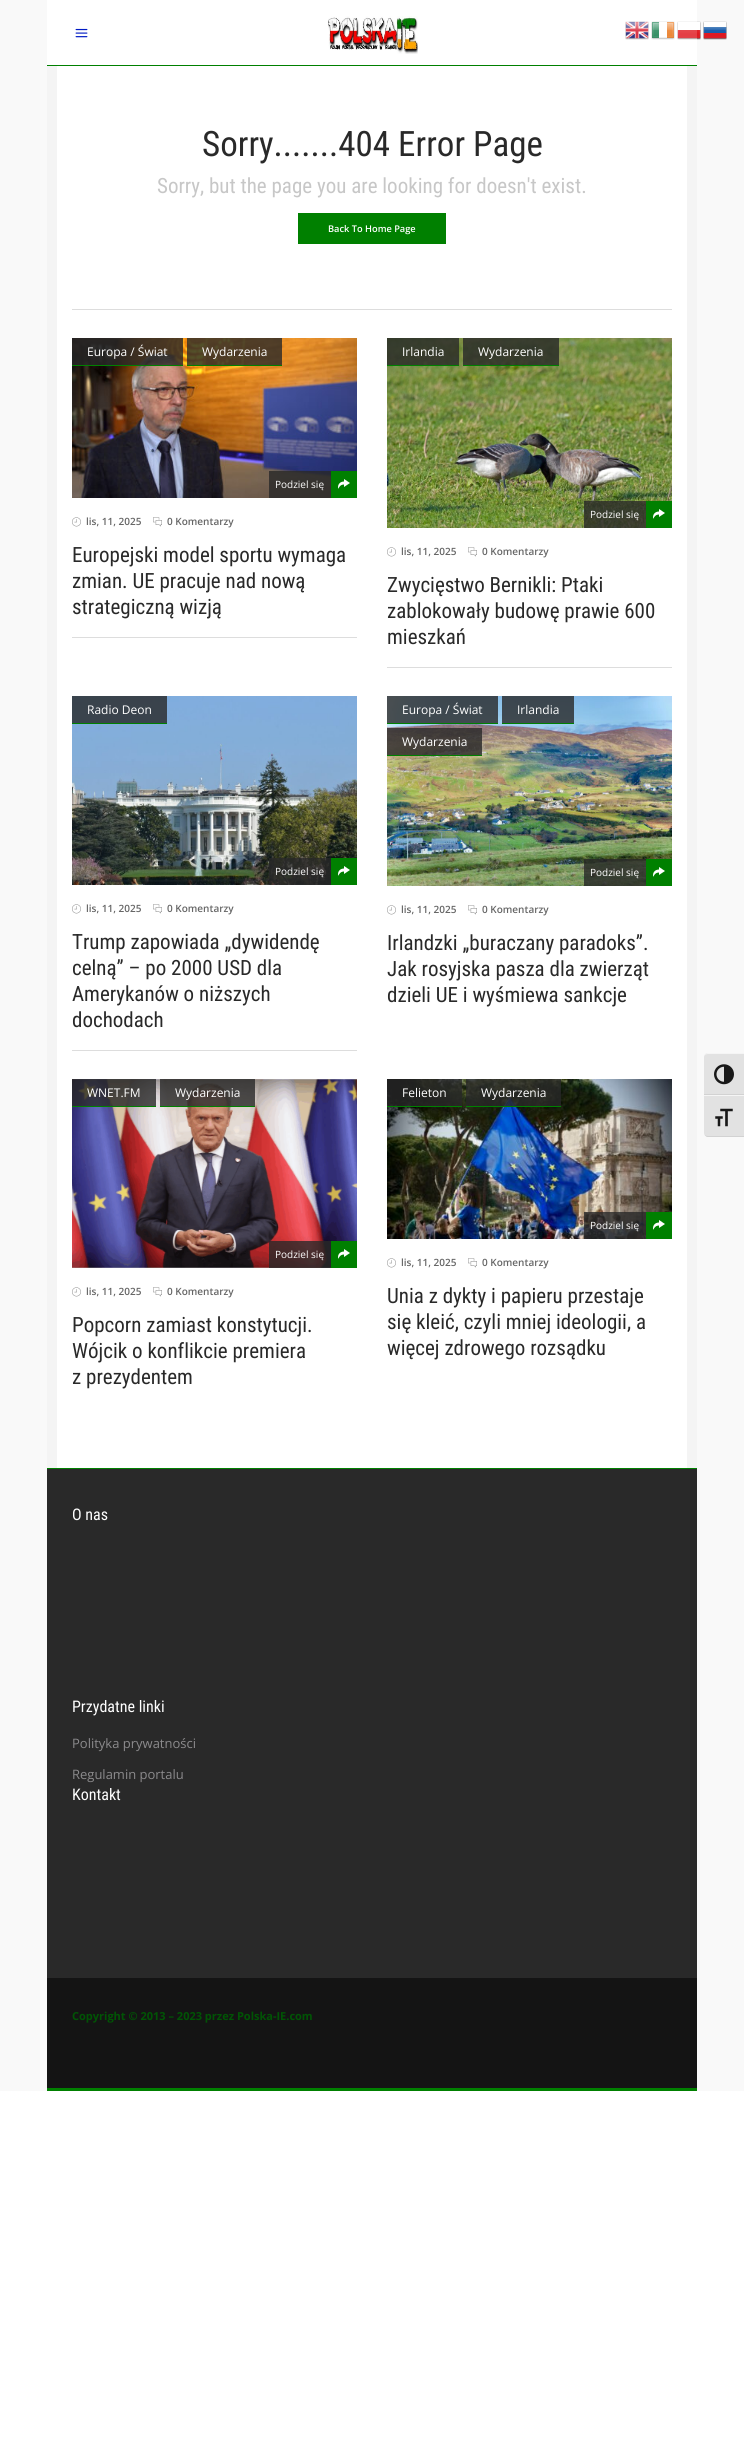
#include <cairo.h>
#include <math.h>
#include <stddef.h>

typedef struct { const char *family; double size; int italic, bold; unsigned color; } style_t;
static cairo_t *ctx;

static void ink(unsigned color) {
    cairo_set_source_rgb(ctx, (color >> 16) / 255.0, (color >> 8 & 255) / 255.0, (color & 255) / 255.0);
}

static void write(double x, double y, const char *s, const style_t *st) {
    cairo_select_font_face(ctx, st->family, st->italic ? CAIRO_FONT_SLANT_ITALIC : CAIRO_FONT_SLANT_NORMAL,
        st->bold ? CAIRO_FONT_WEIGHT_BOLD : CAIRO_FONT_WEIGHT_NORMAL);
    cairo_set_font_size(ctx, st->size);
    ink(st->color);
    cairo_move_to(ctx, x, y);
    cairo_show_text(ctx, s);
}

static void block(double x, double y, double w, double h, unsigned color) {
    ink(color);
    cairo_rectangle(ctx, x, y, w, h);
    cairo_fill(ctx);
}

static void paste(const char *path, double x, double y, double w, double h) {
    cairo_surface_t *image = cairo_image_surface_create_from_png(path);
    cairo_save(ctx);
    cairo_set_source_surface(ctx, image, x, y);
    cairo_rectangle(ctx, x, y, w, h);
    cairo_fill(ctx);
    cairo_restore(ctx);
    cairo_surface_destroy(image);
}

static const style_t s1 = {"Roboto Condensed", 35, 0, 0, 0x292929};
static const style_t s2 = {"Roboto Condensed", 21, 0, 0, 0xc7c7c7};
static const style_t s3 = {"Open Sans SemiBold", 9.25, 0, 0, 0xffffff};
static const style_t s4 = {"Open Sans", 12, 0, 0, 0xffffff};
static const style_t s5 = {"Open Sans", 10, 0, 0, 0xffffff};
static const style_t s6 = {"Open Sans SemiBold", 10, 0, 0, 0x666666};
static const style_t s7 = {"Roboto Condensed", 21, 0, 0, 0x292929};
static const style_t s8 = {"Roboto Condensed", 16, 0, 0, 0xffffff};
static const style_t s9 = {"Open Sans", 13, 0, 0, 0x8b8a8c};
static const style_t s10 = {"Open Sans", 11, 0, 1, 0x005404};

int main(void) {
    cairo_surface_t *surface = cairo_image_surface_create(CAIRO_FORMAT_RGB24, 744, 2448);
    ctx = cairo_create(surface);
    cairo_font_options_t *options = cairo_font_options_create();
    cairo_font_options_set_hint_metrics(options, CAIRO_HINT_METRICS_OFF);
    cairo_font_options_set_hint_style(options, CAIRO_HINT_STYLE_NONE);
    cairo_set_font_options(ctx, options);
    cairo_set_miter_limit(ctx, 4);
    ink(0xffffff);
    cairo_paint(ctx);
    block(0, 0, 744, 2091, 0xf9f9f9);
    block(47, 0, 650, 65, 0xffffff);
    paste("pic1.png", 625, 21, 24, 19);
    paste("pic2.png", 651, 21, 24, 19);
    paste("pic7.png", 697, 21, 4, 19);
    paste("pic3.png", 677, 21, 24, 19);
    paste("pic8.png", 703, 21, 24, 19);
    paste("pic4.png", 703, 21, 24, 19);
    block(47, 66, 650, 1402, 0xf4f4f4);
    block(47, 65, 650, 1, 0x008000);
    paste("pic5.png", 75, 28, 13, 10);
    paste("pic6.png", 328, 16, 90, 38);
    block(57, 66, 630, 1402, 0xffffff);
    write(202, 156, "Sorry.......404 Error Page", &s1);
    write(157, 193, "Sorry, but the page you are looking for doesn't exist.", &s2);
    block(298, 213, 148, 31, 0x008000);
    write(328, 232, "Back To Home Page", &s3);
    block(72, 309, 600, 1, 0xdddddd);
    paste("pic9.png", 72, 338, 285, 160);
    cairo_set_source_rgba(ctx, 0.161, 0.161, 0.161, 0.8);
    cairo_rectangle(ctx, 72, 338, 111, 27);
    cairo_fill(ctx);
    block(72, 365, 111, 1, 0x008000);
    write(87, 356, "Europa / Świat", &s4);
    cairo_set_source_rgba(ctx, 0.161, 0.161, 0.161, 0.8);
    cairo_rectangle(ctx, 187, 338, 95, 27);
    cairo_fill(ctx);
    block(187, 365, 95, 1, 0x008000);
    write(202, 356, "Wydarzenia", &s4);
    cairo_set_source_rgba(ctx, 0.161, 0.161, 0.161, 0.8);
    cairo_rectangle(ctx, 269, 471, 62, 27);
    cairo_fill(ctx);
    write(275, 488, "Podziel się", &s5);
    block(331, 471, 26, 27, 0x008000);
    paste("pic10.png", 338, 479, 12, 10);
    paste("pic11.png", 72, 517, 9, 10);
    write(86, 525, "lis, 11, 2025", &s6);
    paste("pic12.png", 153, 517, 9, 10);
    write(167, 525, "0 Komentarzy", &s6);
    block(72, 637, 285, 1, 0xdddddd);
    write(72, 562, "Europejski model sportu wymaga", &s7);
    write(72, 588, "zmian. UE pracuje nad nową", &s7);
    write(72, 614, "strategiczną wizją", &s7);
    paste("pic13.png", 387, 338, 285, 190);
    cairo_set_source_rgba(ctx, 0.161, 0.161, 0.161, 0.8);
    cairo_rectangle(ctx, 387, 338, 72, 27);
    cairo_fill(ctx);
    block(387, 365, 72, 1, 0x008000);
    write(402, 356, "Irlandia", &s4);
    cairo_set_source_rgba(ctx, 0.161, 0.161, 0.161, 0.8);
    cairo_rectangle(ctx, 463, 338, 96, 27);
    cairo_fill(ctx);
    block(463, 365, 96, 1, 0x008000);
    write(478, 356, "Wydarzenia", &s4);
    cairo_set_source_rgba(ctx, 0.161, 0.161, 0.161, 0.8);
    cairo_rectangle(ctx, 584, 501, 62, 27);
    cairo_fill(ctx);
    write(590, 518, "Podziel się", &s5);
    block(646, 501, 26, 27, 0x008000);
    paste("pic10.png", 653, 509, 12, 10);
    paste("pic11.png", 387, 547, 9, 10);
    write(401, 555, "lis, 11, 2025", &s6);
    paste("pic12.png", 468, 547, 9, 10);
    write(482, 555, "0 Komentarzy", &s6);
    block(387, 667, 285, 1, 0xdddddd);
    write(387, 592, "Zwycięstwo Bernikli: Ptaki", &s7);
    write(387, 618, "zablokowały budowę prawie 600", &s7);
    write(387, 644, "mieszkań", &s7);
    paste("pic14.png", 72, 696, 285, 189);
    cairo_set_source_rgba(ctx, 0.161, 0.161, 0.161, 0.8);
    cairo_rectangle(ctx, 72, 696, 95, 27);
    cairo_fill(ctx);
    block(72, 723, 95, 1, 0x008000);
    write(87, 714, "Radio Deon", &s4);
    cairo_set_source_rgba(ctx, 0.161, 0.161, 0.161, 0.8);
    cairo_rectangle(ctx, 269, 858, 62, 27);
    cairo_fill(ctx);
    write(275, 875, "Podziel się", &s5);
    block(331, 858, 26, 27, 0x008000);
    paste("pic10.png", 338, 866, 12, 10);
    paste("pic11.png", 72, 904, 9, 10);
    write(86, 912, "lis, 11, 2025", &s6);
    paste("pic12.png", 153, 904, 9, 10);
    write(167, 912, "0 Komentarzy", &s6);
    block(72, 1050, 285, 1, 0xdddddd);
    write(72, 949, "Trump zapowiada „dywidendę", &s7);
    write(72, 975, "celną” – po 2000 USD dla", &s7);
    write(72, 1001, "Amerykanów o niższych", &s7);
    write(72, 1027, "dochodach", &s7);
    paste("pic15.png", 387, 696, 285, 190);
    cairo_set_source_rgba(ctx, 0.161, 0.161, 0.161, 0.8);
    cairo_rectangle(ctx, 387, 696, 111, 27);
    cairo_fill(ctx);
    block(387, 723, 111, 1, 0x008000);
    write(402, 714, "Europa / Świat", &s4);
    cairo_set_source_rgba(ctx, 0.161, 0.161, 0.161, 0.8);
    cairo_rectangle(ctx, 502, 696, 72, 27);
    cairo_fill(ctx);
    block(502, 723, 72, 1, 0x008000);
    write(517, 714, "Irlandia", &s4);
    cairo_set_source_rgba(ctx, 0.161, 0.161, 0.161, 0.8);
    cairo_rectangle(ctx, 387, 728, 95, 27);
    cairo_fill(ctx);
    block(387, 755, 95, 1, 0x008000);
    write(402, 746, "Wydarzenia", &s4);
    cairo_set_source_rgba(ctx, 0.161, 0.161, 0.161, 0.8);
    cairo_rectangle(ctx, 584, 859, 62, 27);
    cairo_fill(ctx);
    write(590, 876, "Podziel się", &s5);
    block(646, 859, 26, 27, 0x008000);
    paste("pic10.png", 653, 867, 12, 10);
    paste("pic11.png", 387, 905, 9, 10);
    write(401, 913, "lis, 11, 2025", &s6);
    paste("pic12.png", 468, 905, 9, 10);
    write(482, 913, "0 Komentarzy", &s6);
    write(387, 950, "Irlandzki „buraczany paradoks”.", &s7);
    write(387, 976, "Jak rosyjska pasza dla zwierząt", &s7);
    write(387, 1002, "dzieli UE i wyśmiewa sankcje", &s7);
    paste("pic16.png", 72, 1079, 285, 189);
    cairo_set_source_rgba(ctx, 0.161, 0.161, 0.161, 0.8);
    cairo_rectangle(ctx, 72, 1079, 84, 27);
    cairo_fill(ctx);
    block(72, 1106, 84, 1, 0x008000);
    write(87, 1097, "WNET.FM", &s4);
    cairo_set_source_rgba(ctx, 0.161, 0.161, 0.161, 0.8);
    cairo_rectangle(ctx, 160, 1079, 95, 27);
    cairo_fill(ctx);
    block(160, 1106, 95, 1, 0x008000);
    write(175, 1097, "Wydarzenia", &s4);
    cairo_set_source_rgba(ctx, 0.161, 0.161, 0.161, 0.8);
    cairo_rectangle(ctx, 269, 1241, 62, 27);
    cairo_fill(ctx);
    write(275, 1258, "Podziel się", &s5);
    block(331, 1241, 26, 27, 0x008000);
    paste("pic10.png", 338, 1249, 12, 10);
    paste("pic11.png", 72, 1287, 9, 10);
    write(86, 1295, "lis, 11, 2025", &s6);
    paste("pic12.png", 153, 1287, 9, 10);
    write(167, 1295, "0 Komentarzy", &s6);
    write(72, 1332, "Popcorn zamiast konstytucji.", &s7);
    write(72, 1358, "Wójcik o konflikcie premiera", &s7);
    write(72, 1384, "z prezydentem", &s7);
    paste("pic17.png", 387, 1079, 285, 160);
    cairo_set_source_rgba(ctx, 0.161, 0.161, 0.161, 0.8);
    cairo_rectangle(ctx, 387, 1079, 75, 27);
    cairo_fill(ctx);
    block(387, 1106, 75, 1, 0x008000);
    write(402, 1097, "Felieton", &s4);
    cairo_set_source_rgba(ctx, 0.161, 0.161, 0.161, 0.8);
    cairo_rectangle(ctx, 466, 1079, 95, 27);
    cairo_fill(ctx);
    block(466, 1106, 95, 1, 0x008000);
    write(481, 1097, "Wydarzenia", &s4);
    cairo_set_source_rgba(ctx, 0.161, 0.161, 0.161, 0.8);
    cairo_rectangle(ctx, 584, 1212, 62, 27);
    cairo_fill(ctx);
    write(590, 1229, "Podziel się", &s5);
    block(646, 1212, 26, 27, 0x008000);
    paste("pic10.png", 653, 1220, 12, 10);
    paste("pic11.png", 387, 1258, 9, 10);
    write(401, 1266, "lis, 11, 2025", &s6);
    paste("pic12.png", 468, 1258, 9, 10);
    write(482, 1266, "0 Komentarzy", &s6);
    write(387, 1303, "Unia z dykty i papieru przestaje", &s7);
    write(387, 1329, "się kleić, czyli mniej ideologii, a", &s7);
    write(387, 1355, "więcej zdrowego rozsądku", &s7);
    block(47, 1468, 650, 1, 0x008000);
    block(47, 1469, 650, 509, 0x292929);
    write(72, 1520, "O nas", &s8);
    write(72, 1712, "Przydatne linki", &s8);
    write(72, 1748, "Polityka prywatności", &s9);
    write(72, 1779, "Regulamin portalu", &s9);
    write(72, 1800, "Kontakt", &s8);
    block(47, 1978, 650, 110, 0x141414);
    block(47, 2088, 650, 3, 0x008000);
    write(72, 2020, "Copyright © 2013 – 2023 przez Polska-IE.com", &s10);
    ink(0xe2e2e2);
    cairo_new_path(ctx);
    cairo_move_to(ctx, 708, 1053);
    cairo_line_to(ctx, 744, 1053);
    cairo_line_to(ctx, 744, 1095);
    cairo_line_to(ctx, 704, 1095);
    cairo_line_to(ctx, 704, 1057);
    cairo_curve_to(ctx, 704, 1055, 706, 1053, 708, 1053);
    cairo_close_path(ctx);
    cairo_fill(ctx);
    ink(0xf5f5f5);
    cairo_new_path(ctx);
    cairo_move_to(ctx, 708, 1054);
    cairo_line_to(ctx, 744, 1054);
    cairo_line_to(ctx, 744, 1053);
    cairo_line_to(ctx, 708, 1053);
    cairo_curve_to(ctx, 706, 1053, 704, 1055, 704, 1057);
    cairo_curve_to(ctx, 704, 1055, 706, 1054, 708, 1054);
    cairo_close_path(ctx);
    cairo_fill(ctx);
    block(704, 1094, 40, 1, 0xd2d2d2);
    paste("pic18.png", 714, 1064, 20, 21);
    ink(0xe2e2e2);
    cairo_new_path(ctx);
    cairo_move_to(ctx, 704, 1095);
    cairo_line_to(ctx, 744, 1095);
    cairo_line_to(ctx, 744, 1137);
    cairo_line_to(ctx, 708, 1137);
    cairo_curve_to(ctx, 706, 1137, 704, 1135, 704, 1133);
    cairo_close_path(ctx);
    cairo_fill(ctx);
    block(704, 1095, 40, 1, 0xf5f5f5);
    ink(0xd2d2d2);
    cairo_new_path(ctx);
    cairo_move_to(ctx, 744, 1137);
    cairo_line_to(ctx, 744, 1136);
    cairo_line_to(ctx, 708, 1136);
    cairo_curve_to(ctx, 706, 1136, 704, 1135, 704, 1133);
    cairo_curve_to(ctx, 704, 1135, 706, 1137, 708, 1137);
    cairo_close_path(ctx);
    cairo_fill(ctx);
    paste("pic19.png", 715, 1108, 18, 19);
    cairo_surface_write_to_png(surface, "screenshot.png");
    cairo_font_options_destroy(options);
    cairo_destroy(ctx);
    cairo_surface_destroy(surface);
    return 0;
}
